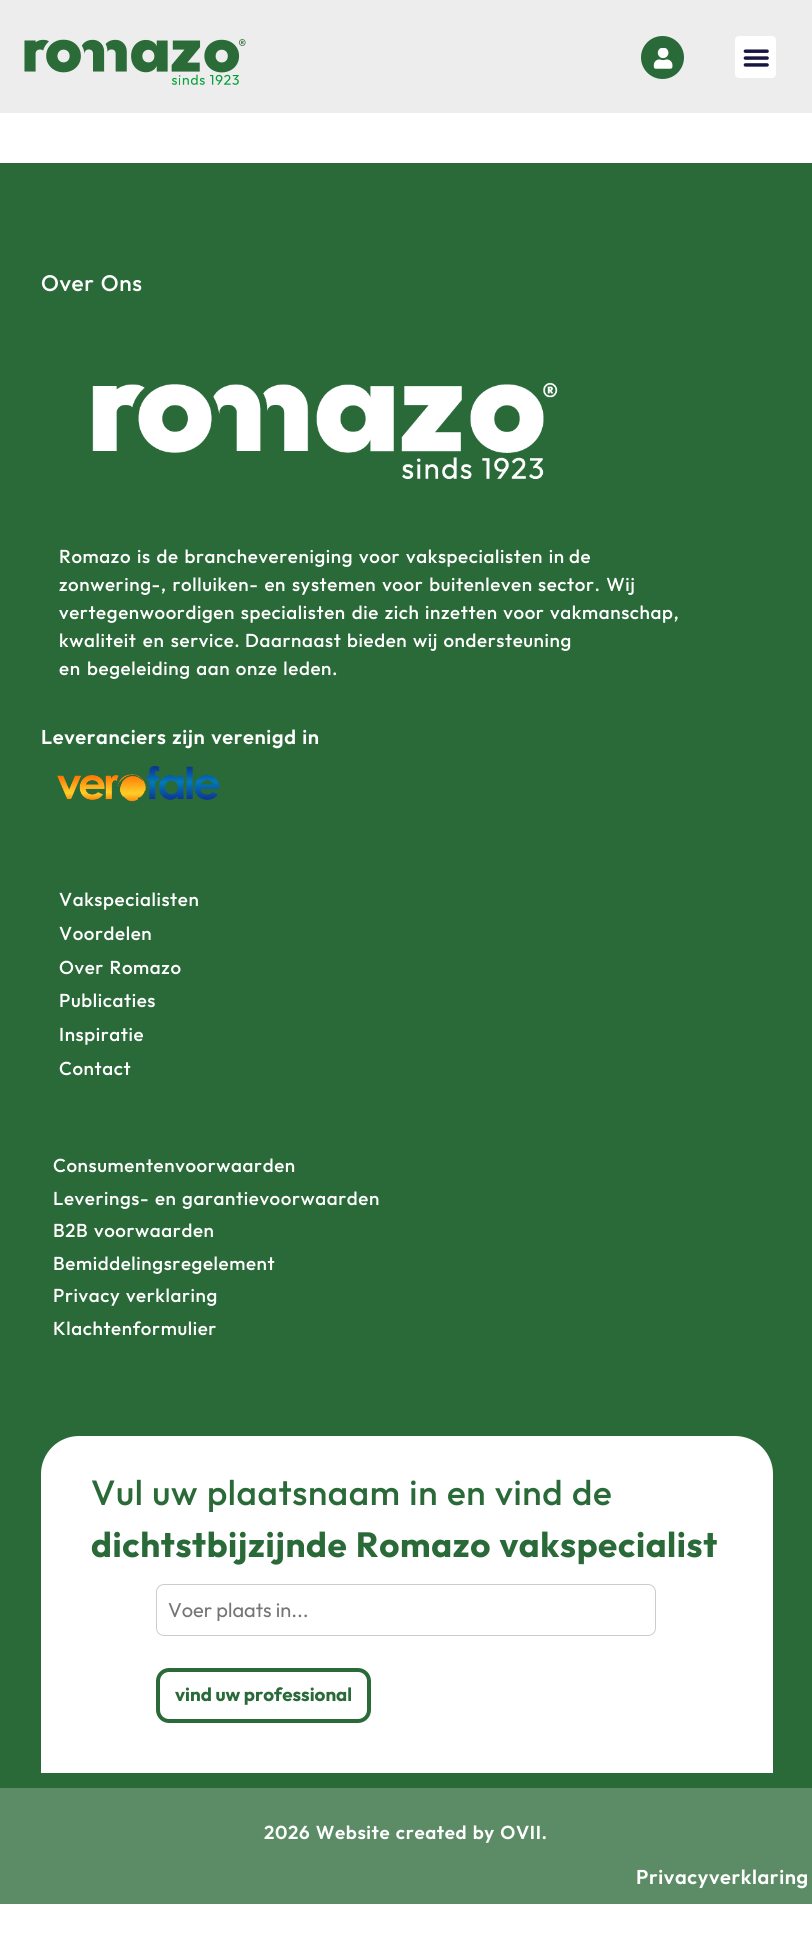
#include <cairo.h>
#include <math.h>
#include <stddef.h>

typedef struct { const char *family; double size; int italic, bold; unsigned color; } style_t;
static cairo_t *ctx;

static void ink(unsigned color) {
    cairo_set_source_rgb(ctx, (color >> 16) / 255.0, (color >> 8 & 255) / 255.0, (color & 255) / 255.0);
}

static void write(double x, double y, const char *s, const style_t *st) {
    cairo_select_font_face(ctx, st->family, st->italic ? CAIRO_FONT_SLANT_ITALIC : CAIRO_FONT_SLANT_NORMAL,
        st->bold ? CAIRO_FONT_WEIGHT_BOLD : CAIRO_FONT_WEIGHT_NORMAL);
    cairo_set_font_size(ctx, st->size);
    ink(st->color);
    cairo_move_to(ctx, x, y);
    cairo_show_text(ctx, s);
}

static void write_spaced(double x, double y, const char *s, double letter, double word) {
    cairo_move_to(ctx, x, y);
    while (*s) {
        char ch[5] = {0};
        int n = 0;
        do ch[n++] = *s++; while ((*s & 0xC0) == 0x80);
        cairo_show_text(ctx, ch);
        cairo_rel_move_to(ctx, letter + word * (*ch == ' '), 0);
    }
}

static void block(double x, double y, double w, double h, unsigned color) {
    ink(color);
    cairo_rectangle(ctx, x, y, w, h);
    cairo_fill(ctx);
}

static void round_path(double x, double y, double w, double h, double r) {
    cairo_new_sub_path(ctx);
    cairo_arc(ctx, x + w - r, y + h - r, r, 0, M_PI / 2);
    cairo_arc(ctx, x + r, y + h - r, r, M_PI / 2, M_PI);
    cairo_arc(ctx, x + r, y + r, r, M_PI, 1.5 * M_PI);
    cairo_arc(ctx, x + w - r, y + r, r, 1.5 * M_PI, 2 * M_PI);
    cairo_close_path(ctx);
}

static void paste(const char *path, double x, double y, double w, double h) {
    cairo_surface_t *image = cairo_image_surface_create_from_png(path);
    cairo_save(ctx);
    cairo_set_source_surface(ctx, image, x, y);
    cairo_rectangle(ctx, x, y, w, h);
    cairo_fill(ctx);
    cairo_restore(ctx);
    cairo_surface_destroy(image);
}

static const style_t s1 = {"Outfit", 20, 0, 0, 0x757575};
static const style_t s2 = {"Outfit", 18.75, 0, 1, 0x2a6a38};

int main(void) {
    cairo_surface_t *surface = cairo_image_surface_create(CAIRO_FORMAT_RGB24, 812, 1954);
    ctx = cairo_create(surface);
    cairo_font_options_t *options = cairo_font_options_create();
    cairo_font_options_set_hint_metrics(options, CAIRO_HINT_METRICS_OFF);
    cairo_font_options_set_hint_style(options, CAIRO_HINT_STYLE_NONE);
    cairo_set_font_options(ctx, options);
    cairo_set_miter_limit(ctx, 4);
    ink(0xffffff);
    cairo_paint(ctx);
    block(0, 0, 812, 113, 0xededed);
    paste("pic1.png", 24, 39, 222, 46);
    ink(0x2a6a38);
    cairo_arc(ctx, 662.5, 57.5, 21.5, 0, 2 * M_PI);
    cairo_fill(ctx);
    paste("pic2.png", 653, 48, 20, 21);
    ink(0xffffff);
    round_path(735, 36, 41, 42, 4);
    cairo_fill(ctx);
    paste("pic3.png", 743, 49, 26, 18);
    block(0, 163, 812, 1625, 0x2a6a38);
    cairo_select_font_face(ctx, "Outfit Medium", CAIRO_FONT_SLANT_NORMAL, CAIRO_FONT_WEIGHT_NORMAL);
    cairo_set_font_size(ctx, 22.5);
    ink(0xffffff);
    write_spaced(41, 291, "Over Ons", 0.62, 1.25);
    paste("pic4.png", 92, 382, 466, 97);
    cairo_set_font_size(ctx, 18.75);
    write_spaced(59, 563, "Romazo is de branchevereniging voor vakspecialisten in", 0.62, 1.5);
    write_spaced(569, 563, "de", 0.62, 0);
    write_spaced(59, 591, "zonwering-, rolluiken- en systemen voor buitenleven", 0.62, 1.5);
    write_spaced(538, 591, "sector. Wij", 0.62, 1.25);
    write_spaced(59, 619, "vertegenwoordigen specialisten die zich", 0.62, 1.5);
    write_spaced(425, 619, "inzetten voor vakmanschap,", 0.62, 1.25);
    write_spaced(59, 647, "kwaliteit en service.", 0.62, 2);
    write_spaced(245, 647, "Daarnaast bieden wij ondersteuning", 0.62, 1.25);
    write_spaced(59, 675, "en", 0.62, 0);
    write_spaced(87, 675, "begeleiding aan onze leden.", 0.62, 1.25);
    cairo_select_font_face(ctx, "Outfit SemiBold", CAIRO_FONT_SLANT_NORMAL, CAIRO_FONT_WEIGHT_NORMAL);
    cairo_set_font_size(ctx, 20);
    write_spaced(41, 744, "Leveranciers zijn verenigd in", 0.62, 1.25);
    paste("pic5.png", 57, 766, 163, 36);
    cairo_select_font_face(ctx, "Outfit Medium", CAIRO_FONT_SLANT_NORMAL, CAIRO_FONT_WEIGHT_NORMAL);
    cairo_set_font_size(ctx, 18.75);
    write_spaced(59, 906, "Vakspecialisten", 0.62, 0);
    write_spaced(59, 940, "Voordelen", 0.62, 0);
    write_spaced(59, 974, "Over Romazo", 0.62, 1.25);
    write_spaced(59, 1007, "Publicaties", 0.62, 0);
    write_spaced(59, 1041, "Inspiratie", 0.62, 0);
    write_spaced(59, 1075, "Contact", 0.62, 0);
    write_spaced(53, 1172, "Consumentenvoorwaarden", 0.62, 0);
    write_spaced(53, 1205, "Leverings- en garantievoorwaarden", 0.62, 1.25);
    write_spaced(53, 1237, "B2B voorwaarden", 0.62, 1.25);
    write_spaced(53, 1270, "Bemiddelingsregelement", 0.62, 0);
    write_spaced(53, 1302, "Privacy verklaring", 0.62, 1.25);
    write_spaced(53, 1335, "Klachtenformulier", 0.62, 0);
    cairo_new_path(ctx);
    cairo_move_to(ctx, 79, 1436);
    cairo_line_to(ctx, 735, 1436);
    cairo_curve_to(ctx, 756, 1436, 773, 1453, 773, 1474);
    cairo_line_to(ctx, 773, 1773);
    cairo_line_to(ctx, 41, 1773);
    cairo_line_to(ctx, 41, 1474);
    cairo_curve_to(ctx, 41, 1453, 58, 1436, 79, 1436);
    cairo_close_path(ctx);
    cairo_fill(ctx);
    cairo_set_font_size(ctx, 35);
    ink(0x2a6a38);
    write_spaced(91, 1505, "Vul uw plaatsnaam in en vind de", 0.62, 1.25);
    cairo_select_font_face(ctx, "Outfit", CAIRO_FONT_SLANT_NORMAL, CAIRO_FONT_WEIGHT_BOLD);
    write_spaced(91, 1557, "dichtstbijzijnde Romazo vakspecialist", 0.62, 1.25);
    round_path(156.5, 1584.5, 499, 51, 7.5);
    ink(0xcccccc);
    cairo_set_line_width(ctx, 1);
    cairo_stroke(ctx);
    write(168, 1617, "Voer plaats in...", &s1);
    round_path(158, 1670, 211, 51, 11);
    ink(0x2a6a38);
    cairo_set_line_width(ctx, 4);
    cairo_stroke(ctx);
    write(175, 1701, "vind uw professional", &s2);
    block(0, 1788, 812, 116, 0x5b8c66);
    cairo_select_font_face(ctx, "Outfit SemiBold", CAIRO_FONT_SLANT_NORMAL, CAIRO_FONT_WEIGHT_NORMAL);
    ink(0xffffff);
    write_spaced(264, 1839, "2026 Website created by OVII.", 0.62, 1.25);
    cairo_set_font_size(ctx, 20);
    write_spaced(636, 1884, "Privacyverklaring", 0.62, 0);
    cairo_surface_write_to_png(surface, "screenshot.png");
    cairo_font_options_destroy(options);
    cairo_destroy(ctx);
    cairo_surface_destroy(surface);
    return 0;
}
